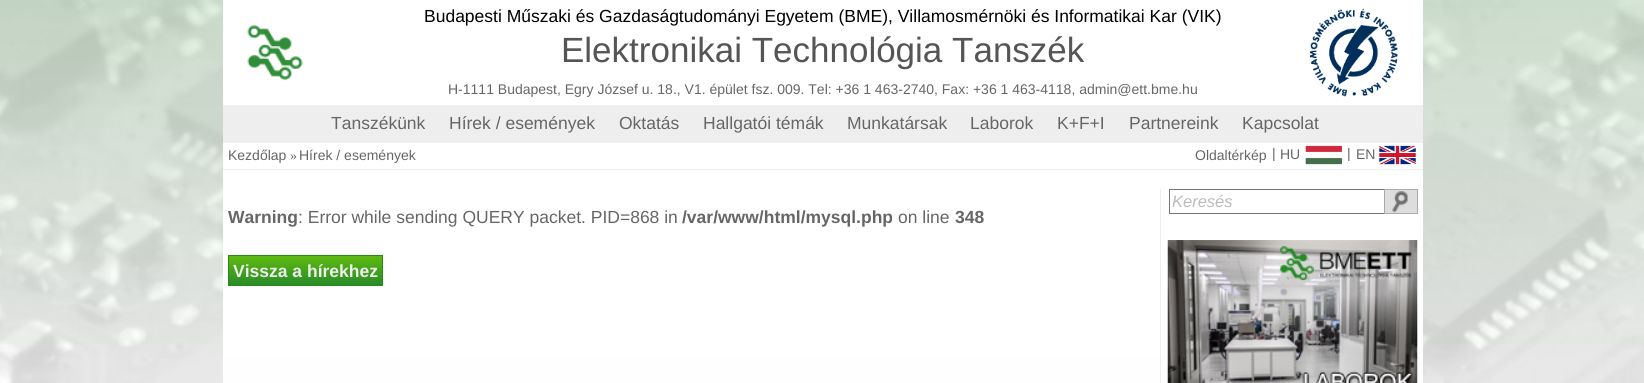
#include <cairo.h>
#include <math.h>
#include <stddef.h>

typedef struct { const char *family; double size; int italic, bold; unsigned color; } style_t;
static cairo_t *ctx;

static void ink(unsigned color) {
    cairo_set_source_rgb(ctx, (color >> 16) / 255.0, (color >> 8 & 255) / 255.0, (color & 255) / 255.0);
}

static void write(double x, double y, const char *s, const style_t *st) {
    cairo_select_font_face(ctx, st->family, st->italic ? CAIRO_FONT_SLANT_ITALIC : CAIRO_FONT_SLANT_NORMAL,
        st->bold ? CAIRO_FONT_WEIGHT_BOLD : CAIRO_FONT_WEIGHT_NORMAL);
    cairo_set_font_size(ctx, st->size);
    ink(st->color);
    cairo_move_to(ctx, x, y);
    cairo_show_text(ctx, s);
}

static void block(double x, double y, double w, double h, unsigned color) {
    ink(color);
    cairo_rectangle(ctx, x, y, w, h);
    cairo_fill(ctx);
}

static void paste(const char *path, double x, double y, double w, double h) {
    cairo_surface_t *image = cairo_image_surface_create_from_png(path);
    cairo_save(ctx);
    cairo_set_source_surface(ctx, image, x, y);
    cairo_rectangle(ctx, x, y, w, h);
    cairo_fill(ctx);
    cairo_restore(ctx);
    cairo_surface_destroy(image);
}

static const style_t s1 = {"Liberation Sans", 17.5, 0, 0, 0x000000};
static const style_t s2 = {"Liberation Sans", 35, 0, 0, 0x555555};
static const style_t s3 = {"Liberation Sans", 14, 0, 0, 0x666666};
static const style_t s4 = {"Liberation Sans", 17.5, 0, 0, 0x666666};
static const style_t s5 = {"Liberation Serif", 14, 0, 0, 0x666666};
static const style_t s6 = {"Liberation Sans", 16.5, 1, 0, 0xbbbbbb};
static const style_t s7 = {"Liberation Sans", 17.5, 0, 1, 0x666666};
static const style_t s8 = {"Liberation Sans", 17.5, 0, 1, 0xeeeeee};

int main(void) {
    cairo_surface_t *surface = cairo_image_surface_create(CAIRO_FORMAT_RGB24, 1644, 383);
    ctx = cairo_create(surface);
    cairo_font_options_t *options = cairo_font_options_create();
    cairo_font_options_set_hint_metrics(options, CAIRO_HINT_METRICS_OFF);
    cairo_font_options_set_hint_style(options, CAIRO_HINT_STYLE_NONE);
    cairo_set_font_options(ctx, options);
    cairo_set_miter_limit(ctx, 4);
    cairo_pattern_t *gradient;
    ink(0xffffff);
    cairo_paint(ctx);
    paste("pic1.png", 0, 0, 223, 383);
    paste("pic2.png", 1423, 0, 221, 383);
    gradient = cairo_pattern_create_linear(823, 0, 823, 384);
    cairo_pattern_add_color_stop_rgba(gradient, 0, 0.776, 0.902, 0.776, 0.5);
    cairo_pattern_add_color_stop_rgba(gradient, 1, 1, 1, 1, 0.5);
    cairo_set_source(ctx, gradient);
    cairo_pattern_destroy(gradient);
    cairo_rectangle(ctx, 0, 0, 1644, 383);
    cairo_fill(ctx);
    block(223, 0, 1200, 357, 0xffffff);
    paste("pic3.png", 247, 25, 56, 55);
    write(424, 22, "Budapesti Műszaki és Gazdaságtudományi Egyetem (BME), Villamosmérnöki és Informatikai Kar (VIK)", &s1);
    write(561, 62, "Elektronikai Technológia Tanszék", &s2);
    write(448, 94, "H-1111 Budapest, Egry József u. 18., V1. épület fsz. 009. Tel: +36 1 463-2740, Fax: +36 1 463-4118, admin@ett.bme.hu", &s3);
    paste("pic4.png", 1310, 8, 88, 89);
    block(223, 105, 1200, 38, 0xeeeeee);
    write(331, 129, "Tanszékünk", &s4);
    write(449, 129, "Hírek / események", &s4);
    write(619, 129, "Oktatás", &s4);
    write(703, 129, "Hallgatói témák", &s4);
    write(847, 129, "Munkatársak", &s4);
    write(970, 129, "Laborok", &s4);
    write(1057, 129, "K+F+I", &s4);
    write(1129, 129, "Partnereink", &s4);
    write(1242, 129, "Kapcsolat", &s4);
    block(223, 169, 1200, 1, 0xeeeeee);
    write(228, 160, "Kezdőlap", &s3);
    write(290, 160, "»", &s5);
    write(299, 160, "Hírek / események", &s3);
    write(1195, 160, "Oldaltérkép", &s3);
    write(1272, 158, "|", &s3);
    write(1280, 159, "HU", &s3);
    paste("pic5.png", 1305, 145, 37, 20);
    write(1347, 158, "|", &s3);
    write(1356, 159, "EN", &s3);
    paste("pic6.png", 1379, 145, 37, 20);
    block(1169, 189, 215, 1, 0x767676);
    block(1169, 213, 215, 1, 0x767676);
    block(1169, 189, 1, 25, 0x767676);
    cairo_save(ctx);
    cairo_rectangle(ctx, 1173, 193, 208, 18);
    cairo_clip(ctx);
    write(1172, 207, "Keresés", &s6);
    cairo_restore(ctx);
    block(1385, 190, 32, 23, 0xdddddd);
    paste("pic7.png", 1392, 191, 16, 22);
    cairo_rectangle(ctx, 1384.5, 189.5, 33, 24);
    ink(0xaaaaaa);
    cairo_set_line_width(ctx, 1);
    cairo_stroke(ctx);
    paste("pic8.png", 1167, 240, 251, 143);
    block(1160, 189, 1, 194, 0xeeeeee);
    write(228, 223, "Warning", &s7);
    write(298, 223, ": Error while sending QUERY packet. PID=868 in", &s4);
    write(682, 223, "/var/www/html/mysql.php", &s7);
    write(898, 223, "on line", &s4);
    write(955, 223, "348", &s7);
    gradient = cairo_pattern_create_linear(305, 256, 305, 285);
    cairo_pattern_add_color_stop_rgba(gradient, 0.05, 0.361, 0.722, 0.067, 1);
    cairo_pattern_add_color_stop_rgba(gradient, 1, 0.157, 0.545, 0.157, 1);
    cairo_set_source(ctx, gradient);
    cairo_pattern_destroy(gradient);
    cairo_rectangle(ctx, 229, 256, 153, 29);
    cairo_fill(ctx);
    cairo_rectangle(ctx, 228.5, 255.5, 154, 30);
    ink(0x268a16);
    cairo_stroke(ctx);
    write(233, 277, "Vissza a hírekhez", &s8);
    cairo_surface_write_to_png(surface, "screenshot.png");
    cairo_font_options_destroy(options);
    cairo_destroy(ctx);
    cairo_surface_destroy(surface);
    return 0;
}
